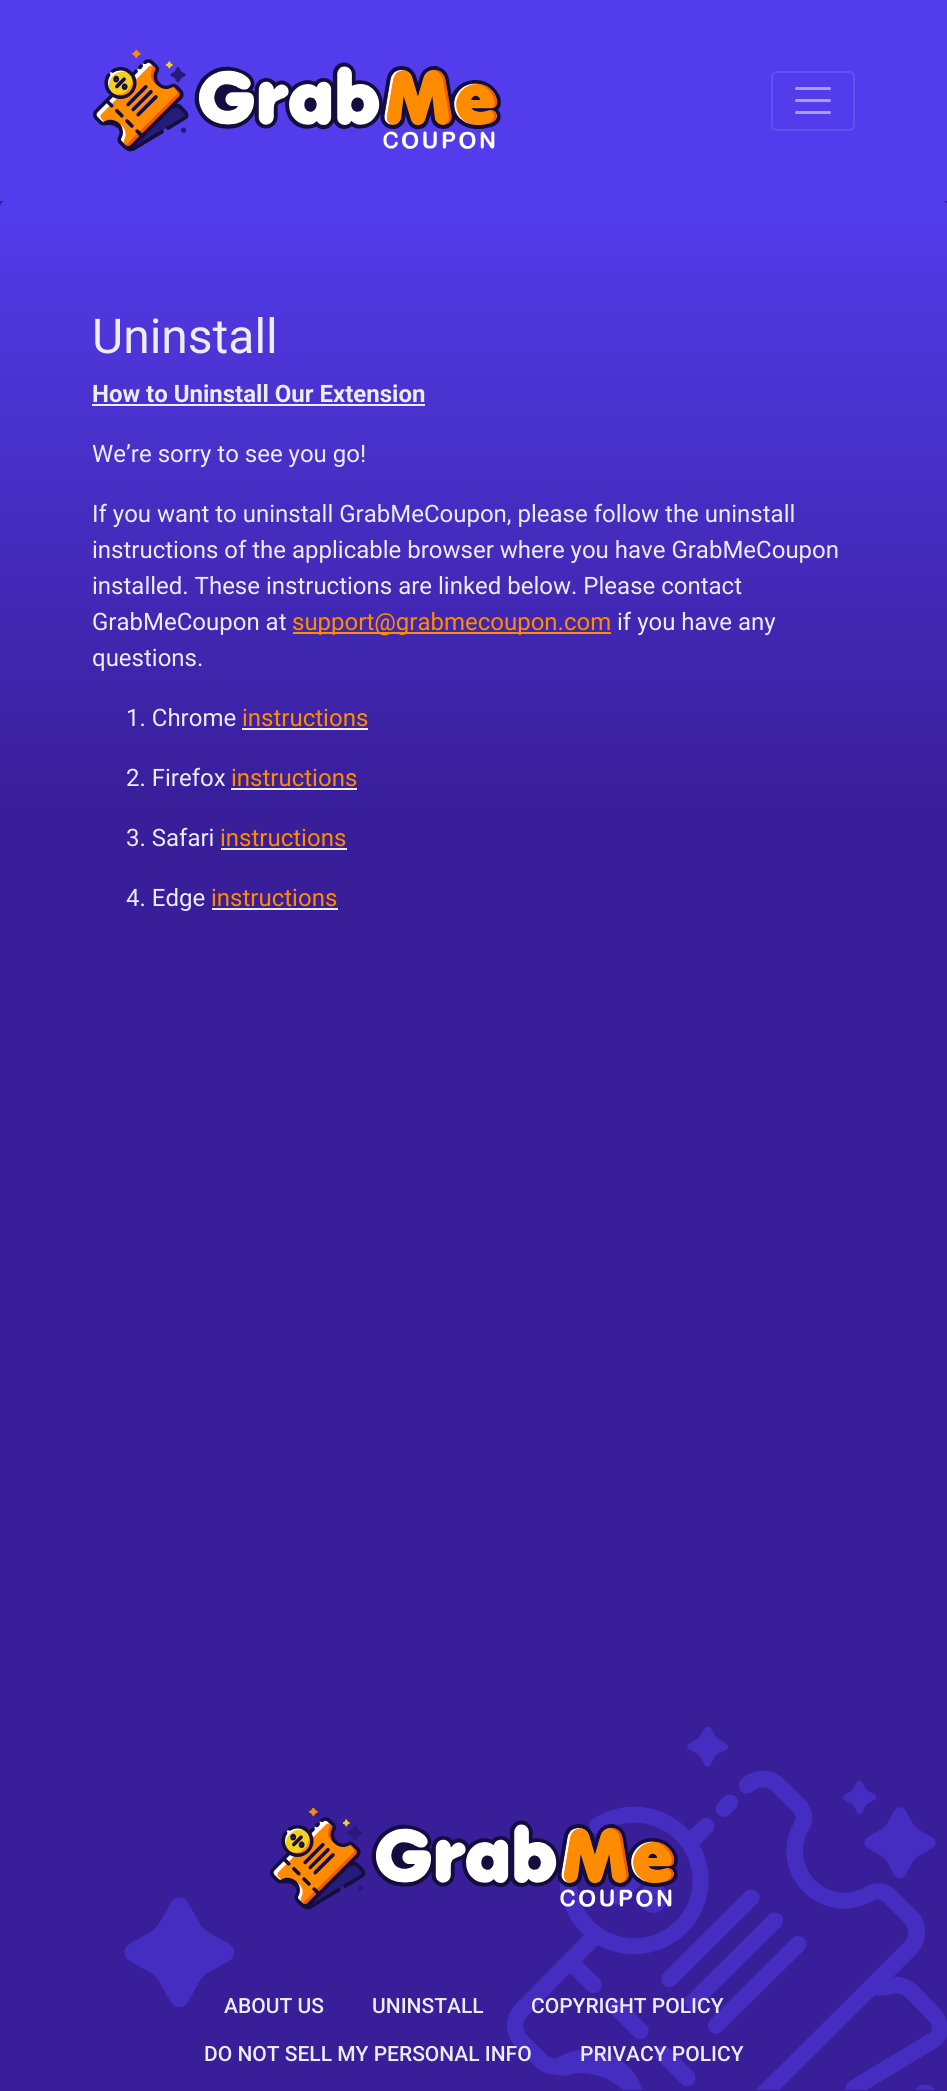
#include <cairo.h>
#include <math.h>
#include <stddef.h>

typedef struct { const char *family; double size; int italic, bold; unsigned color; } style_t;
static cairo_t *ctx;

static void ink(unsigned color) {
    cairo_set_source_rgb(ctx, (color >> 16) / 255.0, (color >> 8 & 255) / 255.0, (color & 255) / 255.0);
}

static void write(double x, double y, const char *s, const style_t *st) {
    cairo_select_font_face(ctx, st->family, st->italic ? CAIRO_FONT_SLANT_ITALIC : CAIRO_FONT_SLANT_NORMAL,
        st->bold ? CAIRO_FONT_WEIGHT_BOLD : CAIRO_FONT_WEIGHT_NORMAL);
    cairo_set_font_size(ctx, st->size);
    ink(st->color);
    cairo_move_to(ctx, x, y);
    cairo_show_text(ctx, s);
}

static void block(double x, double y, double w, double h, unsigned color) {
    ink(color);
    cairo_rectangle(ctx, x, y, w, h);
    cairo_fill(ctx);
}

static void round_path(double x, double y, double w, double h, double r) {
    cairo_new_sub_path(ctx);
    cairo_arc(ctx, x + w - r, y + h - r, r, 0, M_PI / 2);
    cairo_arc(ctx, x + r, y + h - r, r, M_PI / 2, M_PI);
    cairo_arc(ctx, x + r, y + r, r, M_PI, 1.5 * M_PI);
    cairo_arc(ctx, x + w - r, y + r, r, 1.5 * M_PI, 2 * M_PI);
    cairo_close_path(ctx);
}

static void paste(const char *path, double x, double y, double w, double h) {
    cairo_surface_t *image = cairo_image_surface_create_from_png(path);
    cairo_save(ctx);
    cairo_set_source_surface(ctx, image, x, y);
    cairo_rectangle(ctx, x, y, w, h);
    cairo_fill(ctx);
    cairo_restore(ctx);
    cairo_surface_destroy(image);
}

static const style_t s1 = {"Roboto", 48, 0, 0, 0xeeecf9};
static const style_t s2 = {"Roboto", 24, 0, 1, 0xeeecf9};
static const style_t s3 = {"Roboto", 24, 0, 0, 0xeeecf9};
static const style_t s4 = {"Roboto", 24, 0, 0, 0xff8c00};
static const style_t s5 = {"Roboto Medium", 21, 0, 0, 0xeeecf9};

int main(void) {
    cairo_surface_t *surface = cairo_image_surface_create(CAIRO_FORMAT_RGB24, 947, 2091);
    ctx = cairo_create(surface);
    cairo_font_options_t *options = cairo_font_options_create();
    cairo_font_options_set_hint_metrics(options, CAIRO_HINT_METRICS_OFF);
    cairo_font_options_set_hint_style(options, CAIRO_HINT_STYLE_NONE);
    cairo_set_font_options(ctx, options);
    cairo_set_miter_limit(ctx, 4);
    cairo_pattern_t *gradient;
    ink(0x533ceb);
    cairo_paint(ctx);
    paste("pic1.png", 93, 50, 408, 102);
    round_path(772, 72, 82, 58, 5);
    ink(0x6450ed);
    cairo_stroke(ctx);
    cairo_new_path(ctx);
    cairo_move_to(ctx, 796.5, 88.5);
    cairo_line_to(ctx, 829.5, 88.5);
    cairo_move_to(ctx, 796.5, 100.5);
    cairo_line_to(ctx, 829.5, 100.5);
    cairo_move_to(ctx, 796.5, 112.5);
    cairo_line_to(ctx, 829.5, 112.5);
    ink(0xa99ef5);
    cairo_set_line_width(ctx, 3);
    cairo_set_line_cap(ctx, CAIRO_LINE_CAP_ROUND);
    cairo_stroke(ctx);
    block(0, 201, 947, 1890, 0x381e98);
    gradient = cairo_pattern_create_linear(474, 201, 474, 1736);
    cairo_pattern_add_color_stop_rgba(gradient, 0, 0.325, 0.235, 0.922, 1);
    cairo_pattern_add_color_stop_rgba(gradient, 0.4, 0.22, 0.118, 0.596, 1);
    cairo_set_source(ctx, gradient);
    cairo_pattern_destroy(gradient);
    round_path(0, 201, 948, 1535, 6);
    cairo_fill(ctx);
    write(92, 353, "Uninstall", &s1);
    write(92, 402, "How to Uninstall Our Extension", &s2);
    block(92, 404, 333, 2, 0xeeecf9);
    write(92, 462, "We’re sorry to see you go!", &s3);
    write(92, 522, "If you want to uninstall GrabMeCoupon, please follow the uninstall", &s3);
    write(92, 558, "instructions of the applicable browser where you have GrabMeCoupon", &s3);
    write(92, 594, "installed. These instructions are linked below. Please contact", &s3);
    write(92, 630, "GrabMeCoupon at", &s3);
    block(293, 632, 318, 2, 0xff8c00);
    write(292, 630, "support@grabmecoupon.com", &s4);
    write(617, 630, "if you have any", &s3);
    write(92, 666, "questions.", &s3);
    write(126, 726, "1. Chrome", &s3);
    write(242, 726, "instructions", &s4);
    block(242, 728, 126, 2, 0xeeecf9);
    write(126, 786, "2. Firefox", &s3);
    write(231, 786, "instructions", &s4);
    block(231, 788, 126, 2, 0xeeecf9);
    write(126, 846, "3. Safari", &s3);
    write(220, 846, "instructions", &s4);
    block(221, 848, 126, 2, 0xeeecf9);
    write(126, 906, "4. Edge", &s3);
    write(211, 906, "instructions", &s4);
    block(212, 908, 126, 2, 0xeeecf9);
    paste("pic2.png", 124, 1727, 823, 363);
    paste("pic3.png", 270, 1808, 408, 102);
    write(224, 2013, "ABOUT US", &s5);
    write(372, 2013, "UNINSTALL", &s5);
    write(531, 2013, "COPYRIGHT POLICY", &s5);
    write(204, 2061, "DO NOT SELL MY PERSONAL INFO", &s5);
    write(580, 2061, "PRIVACY POLICY", &s5);
    cairo_surface_write_to_png(surface, "screenshot.png");
    cairo_font_options_destroy(options);
    cairo_destroy(ctx);
    cairo_surface_destroy(surface);
    return 0;
}
